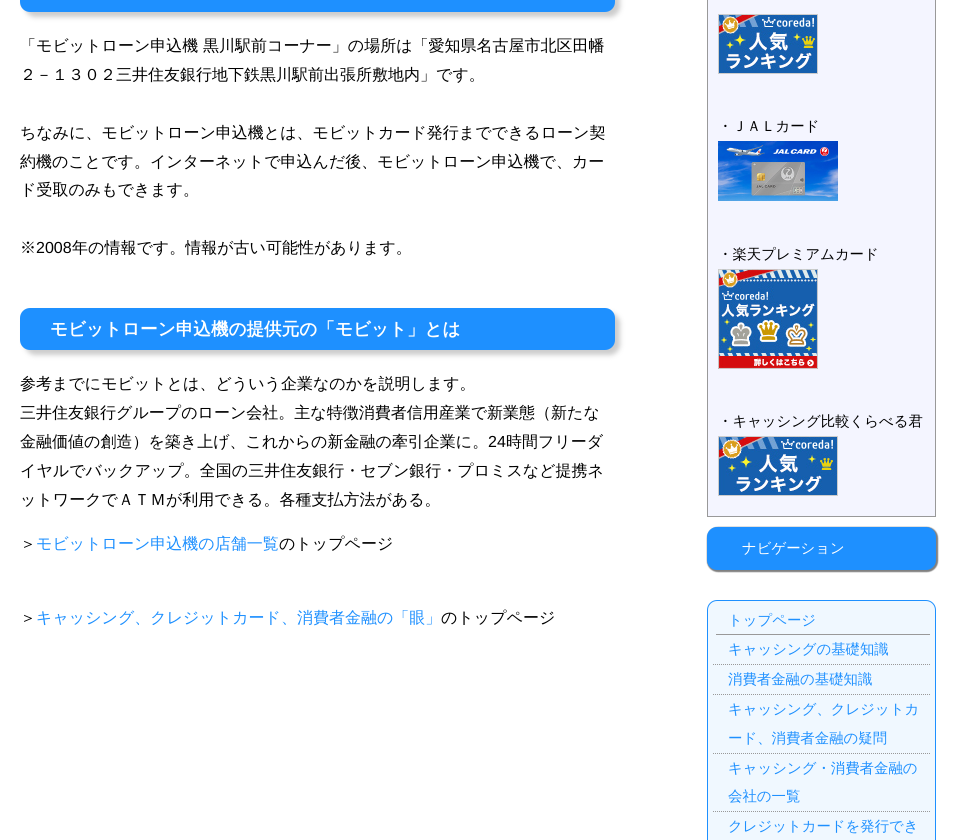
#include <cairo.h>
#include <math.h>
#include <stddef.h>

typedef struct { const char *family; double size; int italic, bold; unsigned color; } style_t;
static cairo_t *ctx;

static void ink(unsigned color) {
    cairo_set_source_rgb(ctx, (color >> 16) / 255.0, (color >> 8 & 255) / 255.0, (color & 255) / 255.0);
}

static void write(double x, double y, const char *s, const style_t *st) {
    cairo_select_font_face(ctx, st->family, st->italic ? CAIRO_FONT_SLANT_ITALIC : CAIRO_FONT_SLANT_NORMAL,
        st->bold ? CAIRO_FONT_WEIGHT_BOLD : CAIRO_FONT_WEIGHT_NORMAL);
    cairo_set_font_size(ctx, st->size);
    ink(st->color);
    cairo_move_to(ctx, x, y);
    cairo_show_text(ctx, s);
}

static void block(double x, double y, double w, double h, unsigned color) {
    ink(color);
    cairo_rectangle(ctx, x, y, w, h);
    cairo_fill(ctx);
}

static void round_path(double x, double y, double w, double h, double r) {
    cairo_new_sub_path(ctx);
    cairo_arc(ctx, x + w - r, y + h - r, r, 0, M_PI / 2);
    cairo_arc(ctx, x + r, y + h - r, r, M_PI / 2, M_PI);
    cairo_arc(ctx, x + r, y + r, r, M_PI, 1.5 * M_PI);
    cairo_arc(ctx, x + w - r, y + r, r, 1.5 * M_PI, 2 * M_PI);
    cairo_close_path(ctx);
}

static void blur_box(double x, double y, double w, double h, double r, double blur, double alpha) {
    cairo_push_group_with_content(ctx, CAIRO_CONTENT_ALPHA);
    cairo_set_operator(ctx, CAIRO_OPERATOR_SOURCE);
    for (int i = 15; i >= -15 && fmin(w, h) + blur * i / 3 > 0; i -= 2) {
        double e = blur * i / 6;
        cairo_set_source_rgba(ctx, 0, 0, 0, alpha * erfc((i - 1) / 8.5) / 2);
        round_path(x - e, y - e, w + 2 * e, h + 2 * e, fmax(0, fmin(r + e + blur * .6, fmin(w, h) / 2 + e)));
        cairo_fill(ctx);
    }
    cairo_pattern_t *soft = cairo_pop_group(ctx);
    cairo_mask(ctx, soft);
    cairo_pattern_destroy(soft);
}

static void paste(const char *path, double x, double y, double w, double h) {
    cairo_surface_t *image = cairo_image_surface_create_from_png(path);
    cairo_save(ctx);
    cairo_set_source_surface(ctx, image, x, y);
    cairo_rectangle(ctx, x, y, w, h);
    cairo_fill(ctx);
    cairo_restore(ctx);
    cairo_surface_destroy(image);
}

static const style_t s1 = {"WenQuanYi Zen Hei Medium", 16, 0, 0, 0x000000};
static const style_t s2 = {"Liberation Sans", 16, 0, 0, 0x000000};
static const style_t s3 = {"WenQuanYi Zen Hei", 17.6, 0, 1, 0xffffff};
static const style_t s4 = {"WenQuanYi Zen Hei Medium", 16, 0, 0, 0x1e90ff};
static const style_t s5 = {"WenQuanYi Zen Hei Medium", 14.4, 0, 0, 0x000000};
static const style_t s6 = {"WenQuanYi Zen Hei Medium", 14.4, 0, 0, 0xffffff};
static const style_t s7 = {"WenQuanYi Zen Hei Medium", 14.4, 0, 0, 0x1e90ff};

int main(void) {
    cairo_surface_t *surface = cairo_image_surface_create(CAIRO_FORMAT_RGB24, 956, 840);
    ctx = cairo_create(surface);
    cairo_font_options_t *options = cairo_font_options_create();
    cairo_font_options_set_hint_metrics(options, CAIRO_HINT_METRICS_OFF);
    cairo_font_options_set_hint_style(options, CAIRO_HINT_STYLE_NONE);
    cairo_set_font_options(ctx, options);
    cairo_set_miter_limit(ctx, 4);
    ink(0xffffff);
    cairo_paint(ctx);
    ink(0xcccccc);
    blur_box(25, -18, 595, 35, 10, 2.5, 1);
    ink(0x1e90ff);
    round_path(20, -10, 595, 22, 10);
    cairo_fill(ctx);
    write(20, 51, "「モビットローン申込機 黒川駅前コーナー」の場所は「愛知県名古屋市北区田幡", &s1);
    write(20, 80, "２－１３０２三井住友銀行地下鉄黒川駅前出張所敷地内」です。", &s1);
    write(20, 138, "ちなみに、モビットローン申込機とは、モビットカード発行までできるローン契", &s1);
    write(20, 167, "約機のことです。インターネットで申込んだ後、モビットローン申込機で、カー", &s1);
    write(20, 195, "ド受取のみもできます。", &s1);
    write(20, 253, "※", &s1);
    write(36, 253, "2008", &s2);
    write(72, 253, "年の情報です。情報が古い可能性があります。", &s1);
    ink(0xcccccc);
    blur_box(25, 313, 595, 42, 10, 2.5, 1);
    ink(0x1e90ff);
    round_path(20, 308, 595, 42, 10);
    cairo_fill(ctx);
    write(50, 335, "モビットローン申込機の提供元の「モビット」とは", &s3);
    write(20, 389, "参考までにモビットとは、どういう企業なのかを説明します。", &s1);
    write(20, 418, "三井住友銀行グループのローン会社。主な特徴消費者信用産業で新業態（新たな", &s1);
    write(20, 447, "金融価値の創造）を築き上げ、これからの新金融の牽引企業に。", &s1);
    write(488, 447, "24", &s2);
    write(506, 447, "時間フリーダ", &s1);
    write(20, 476, "イヤルでバックアップ。全国の三井住友銀行・セブン銀行・プロミスなど提携ネ", &s1);
    write(20, 505, "ットワークでＡＴＭが利用できる。各種支払方法がある。", &s1);
    write(20, 549, "＞", &s1);
    write(36, 549, "モビットローン申込機の店舗一覧", &s4);
    write(279, 549, "のトップページ", &s1);
    write(20, 623, "＞", &s1);
    write(36, 623, "キャッシング、クレジットカード、消費者金融の「眼」", &s4);
    write(441, 623, "のトップページ", &s1);
    ink(0xf4f5ff);
    cairo_rectangle(ctx, 707.5, -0.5, 228, 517);
    cairo_fill_preserve(ctx);
    ink(0x999999);
    cairo_set_line_width(ctx, 1);
    cairo_stroke(ctx);
    paste("pic1.png", 718, 14, 100, 60);
    write(718, 131, "・ＪＡＬカード", &s5);
    paste("pic2.png", 718, 141, 120, 60);
    write(718, 259, "・楽天プレミアムカード", &s5);
    paste("pic3.png", 718, 269, 100, 100);
    write(718, 426, "・キャッシング比較くらべる君", &s5);
    paste("pic4.png", 718, 436, 120, 60);
    ink(0x808080);
    blur_box(707, 527, 231, 45, 11, 0.5, 1);
    ink(0x1e90ff);
    round_path(707, 527, 229, 43, 10);
    cairo_fill(ctx);
    write(742, 553, "ナビゲーション", &s6);
    ink(0xf0f8ff);
    round_path(707.5, 600.5, 228, 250, 9.5);
    cairo_fill_preserve(ctx);
    ink(0x1e90ff);
    cairo_stroke(ctx);
    block(716, 634, 214, 1, 0x999999);
    write(728, 625, "トップページ", &s7);
    cairo_new_path(ctx);
    cairo_move_to(ctx, 713, 664.5);
    cairo_line_to(ctx, 930, 664.5);
    ink(0x999999);
    cairo_set_dash(ctx, (double[]){1, 1}, 2, 0);
    cairo_stroke(ctx);
    write(728, 654, "キャッシングの基礎知識", &s7);
    cairo_new_path(ctx);
    cairo_move_to(ctx, 713, 694.5);
    cairo_line_to(ctx, 930, 694.5);
    ink(0x999999);
    cairo_stroke(ctx);
    write(728, 684, "消費者金融の基礎知識", &s7);
    cairo_new_path(ctx);
    cairo_move_to(ctx, 713, 753.5);
    cairo_line_to(ctx, 930, 753.5);
    ink(0x999999);
    cairo_stroke(ctx);
    write(728, 714, "キャッシング、クレジットカ", &s7);
    write(728, 743, "ード、消費者金融の疑問", &s7);
    cairo_new_path(ctx);
    cairo_move_to(ctx, 713, 811.5);
    cairo_line_to(ctx, 930, 811.5);
    ink(0x999999);
    cairo_stroke(ctx);
    write(728, 773, "キャッシング・消費者金融の", &s7);
    write(728, 801, "会社の一覧", &s7);
    write(728, 831, "クレジットカードを発行でき", &s7);
    cairo_surface_write_to_png(surface, "screenshot.png");
    cairo_font_options_destroy(options);
    cairo_destroy(ctx);
    cairo_surface_destroy(surface);
    return 0;
}
